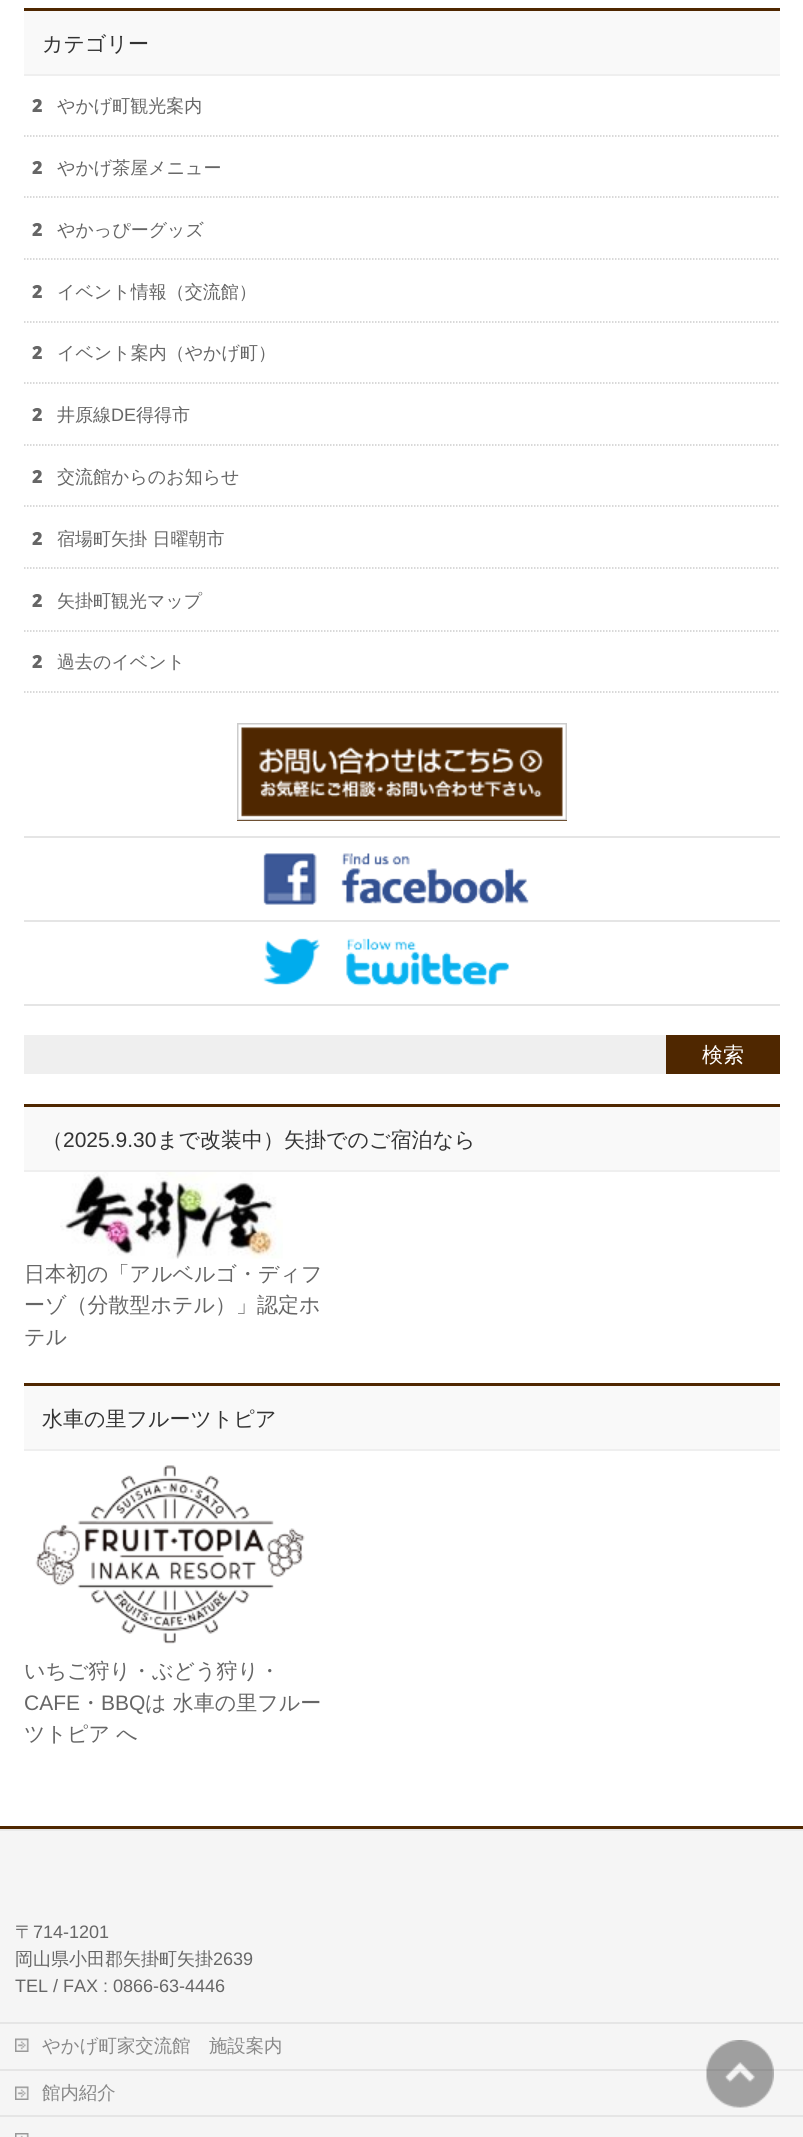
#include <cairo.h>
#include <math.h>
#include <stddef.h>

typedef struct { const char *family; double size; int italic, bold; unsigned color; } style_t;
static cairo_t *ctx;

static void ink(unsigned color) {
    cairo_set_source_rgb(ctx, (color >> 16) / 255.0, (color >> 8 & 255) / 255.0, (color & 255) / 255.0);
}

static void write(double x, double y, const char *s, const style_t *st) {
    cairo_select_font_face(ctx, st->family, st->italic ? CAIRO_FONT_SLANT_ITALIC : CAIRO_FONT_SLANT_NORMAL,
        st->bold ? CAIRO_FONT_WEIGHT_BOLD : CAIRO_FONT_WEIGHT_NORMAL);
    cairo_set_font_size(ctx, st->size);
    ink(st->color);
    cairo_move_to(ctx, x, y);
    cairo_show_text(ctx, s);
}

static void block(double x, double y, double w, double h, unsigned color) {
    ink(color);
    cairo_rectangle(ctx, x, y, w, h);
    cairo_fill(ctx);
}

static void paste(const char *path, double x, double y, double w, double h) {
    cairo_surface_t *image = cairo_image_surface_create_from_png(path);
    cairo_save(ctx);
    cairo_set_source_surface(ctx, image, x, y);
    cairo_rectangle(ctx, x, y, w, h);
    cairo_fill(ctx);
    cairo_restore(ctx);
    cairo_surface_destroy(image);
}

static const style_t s1 = {"WenQuanYi Zen Hei Medium", 21, 0, 0, 0x333333};
static const style_t s2 = {"Noto Sans Black", 18, 0, 0, 0x666666};
static const style_t s3 = {"WenQuanYi Zen Hei Medium", 18, 0, 0, 0x666666};
static const style_t s4 = {"Liberation Sans", 18, 0, 0, 0x666666};
static const style_t s5 = {"WenQuanYi Zen Hei Medium", 21, 0, 0, 0xffffff};
static const style_t s6 = {"Liberation Sans", 21, 0, 0, 0x333333};
static const style_t s7 = {"WenQuanYi Zen Hei Medium", 21, 0, 0, 0x666666};
static const style_t s8 = {"Liberation Sans", 21, 0, 0, 0x666666};
static const style_t s9 = {"WenQuanYi Zen Hei Medium", 18.4, 0, 0, 0x888888};

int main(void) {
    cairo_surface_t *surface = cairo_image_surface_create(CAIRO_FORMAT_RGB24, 803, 2137);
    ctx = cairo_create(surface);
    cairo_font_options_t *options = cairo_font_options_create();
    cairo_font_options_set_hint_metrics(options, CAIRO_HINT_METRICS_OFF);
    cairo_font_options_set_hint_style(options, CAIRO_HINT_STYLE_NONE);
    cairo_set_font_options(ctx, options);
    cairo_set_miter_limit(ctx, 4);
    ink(0xffffff);
    cairo_paint(ctx);
    block(24, 11, 756, 63, 0xf9f9f9);
    block(24, 8, 756, 3, 0x4f2700);
    block(24, 74, 756, 2, 0xefefef);
    write(42, 51, "カテゴリー", &s1);
    cairo_new_path(ctx);
    cairo_move_to(ctx, 24, 136);
    cairo_line_to(ctx, 780, 136);
    ink(0xcccccc);
    cairo_set_line_width(ctx, 1.5);
    cairo_set_dash(ctx, (double[]){1.5, 1.5}, 2, 0);
    cairo_stroke(ctx);
    write(32, 112, "2", &s2);
    write(57, 112, "やかげ町観光案内", &s3);
    cairo_new_path(ctx);
    cairo_move_to(ctx, 24, 197);
    cairo_line_to(ctx, 780, 197);
    ink(0xcccccc);
    cairo_stroke(ctx);
    write(32, 174, "2", &s2);
    write(57, 174, "やかげ茶屋メニュー", &s3);
    cairo_new_path(ctx);
    cairo_move_to(ctx, 24, 259);
    cairo_line_to(ctx, 780, 259);
    ink(0xcccccc);
    cairo_stroke(ctx);
    write(32, 236, "2", &s2);
    write(57, 236, "やかっぴーグッズ", &s3);
    cairo_new_path(ctx);
    cairo_move_to(ctx, 24, 322);
    cairo_line_to(ctx, 780, 322);
    ink(0xcccccc);
    cairo_stroke(ctx);
    write(32, 298, "2", &s2);
    write(57, 298, "イベント情報（交流館）", &s3);
    cairo_new_path(ctx);
    cairo_move_to(ctx, 24, 383);
    cairo_line_to(ctx, 780, 383);
    ink(0xcccccc);
    cairo_stroke(ctx);
    write(32, 359, "2", &s2);
    write(57, 359, "イベント案内（やかげ町）", &s3);
    cairo_new_path(ctx);
    cairo_move_to(ctx, 24, 445);
    cairo_line_to(ctx, 780, 445);
    ink(0xcccccc);
    cairo_stroke(ctx);
    write(32, 421, "2", &s2);
    write(57, 421, "井原線", &s3);
    write(111, 421, "DE", &s4);
    write(136, 421, "得得市", &s3);
    cairo_new_path(ctx);
    cairo_move_to(ctx, 24, 506);
    cairo_line_to(ctx, 780, 506);
    ink(0xcccccc);
    cairo_stroke(ctx);
    write(32, 483, "2", &s2);
    write(57, 483, "交流館からのお知らせ", &s3);
    cairo_new_path(ctx);
    cairo_move_to(ctx, 24, 568);
    cairo_line_to(ctx, 780, 568);
    ink(0xcccccc);
    cairo_stroke(ctx);
    write(32, 545, "2", &s2);
    write(57, 545, "宿場町矢掛 日曜朝市", &s3);
    cairo_new_path(ctx);
    cairo_move_to(ctx, 24, 631);
    cairo_line_to(ctx, 780, 631);
    ink(0xcccccc);
    cairo_stroke(ctx);
    write(32, 607, "2", &s2);
    write(57, 607, "矢掛町観光マップ", &s3);
    cairo_new_path(ctx);
    cairo_move_to(ctx, 24, 692);
    cairo_line_to(ctx, 780, 692);
    ink(0xcccccc);
    cairo_stroke(ctx);
    write(32, 668, "2", &s2);
    write(57, 668, "過去のイベント", &s3);
    block(237, 727, 330, 94, 0x4f2700);
    paste("pic1.png", 237, 723, 330, 98);
    block(24, 836, 756, 2, 0xe5e5e5);
    block(24, 920, 756, 2, 0xe5e5e5);
    paste("pic2.png", 263, 853, 266, 52);
    block(24, 1004, 756, 2, 0xe5e5e5);
    paste("pic3.png", 263, 938, 247, 48);
    block(24, 1035, 642, 39, 0xefefef);
    block(666, 1035, 114, 39, 0x4f2700);
    write(702, 1062, "検索", &s5);
    block(24, 1107, 756, 63, 0xf9f9f9);
    block(24, 1104, 756, 3, 0x4f2700);
    block(24, 1170, 756, 2, 0xefefef);
    write(42, 1147, "（", &s1);
    write(63, 1147, "2025.9.30", &s6);
    write(157, 1147, "まで改装中）矢掛でのご宿泊なら", &s1);
    paste("pic4.png", 60, 1172, 223, 87);
    write(24, 1281, "日本初の「アルベルゴ・ディフ", &s7);
    write(24, 1312, "ーゾ（分散型ホテル）」認定ホ", &s7);
    write(24, 1344, "テル", &s7);
    block(24, 1386, 756, 63, 0xf9f9f9);
    block(24, 1383, 756, 3, 0x4f2700);
    block(24, 1449, 756, 2, 0xefefef);
    write(42, 1426, "水車の里フルーツトピア", &s1);
    paste("pic5.png", 35, 1465, 270, 179);
    write(24, 1678, "いちご狩り・ぶどう狩り・", &s7);
    write(24, 1710, "CAFE", &s8);
    write(80, 1710, "・", &s7);
    write(101, 1710, "BBQ", &s8);
    write(145, 1710, "は 水車の里フルー", &s7);
    write(24, 1741, "ツトピア へ", &s7);
    block(0, 1826, 803, 3, 0x4f2700);
    block(0, 1829, 803, 2, 0xe9e9e9);
    block(0, 1831, 803, 306, 0xf5f5f5);
    write(15, 1938, "〒", &s3);
    write(33, 1938, "714-1201", &s4);
    write(15, 1965, "岡山県小田郡矢掛町矢掛", &s3);
    write(213, 1965, "2639", &s4);
    write(15, 1992, "TEL / FAX : 0866-63-4446", &s4);
    block(0, 2022, 803, 2, 0xe5e5e5);
    paste("pic6.png", 15, 2038, 14, 14);
    block(0, 2069, 803, 2, 0xe5e5e5);
    write(42, 2052, "やかげ町家交流館　施設案内", &s9);
    paste("pic6.png", 15, 2086, 14, 14);
    block(0, 2115, 803, 2, 0xe5e5e5);
    write(42, 2099, "館内紹介", &s9);
    paste("pic7.png", 15, 2133, 14, 4);
    paste("pic8.png", 706, 2040, 68, 68);
    cairo_surface_write_to_png(surface, "screenshot.png");
    cairo_font_options_destroy(options);
    cairo_destroy(ctx);
    cairo_surface_destroy(surface);
    return 0;
}
